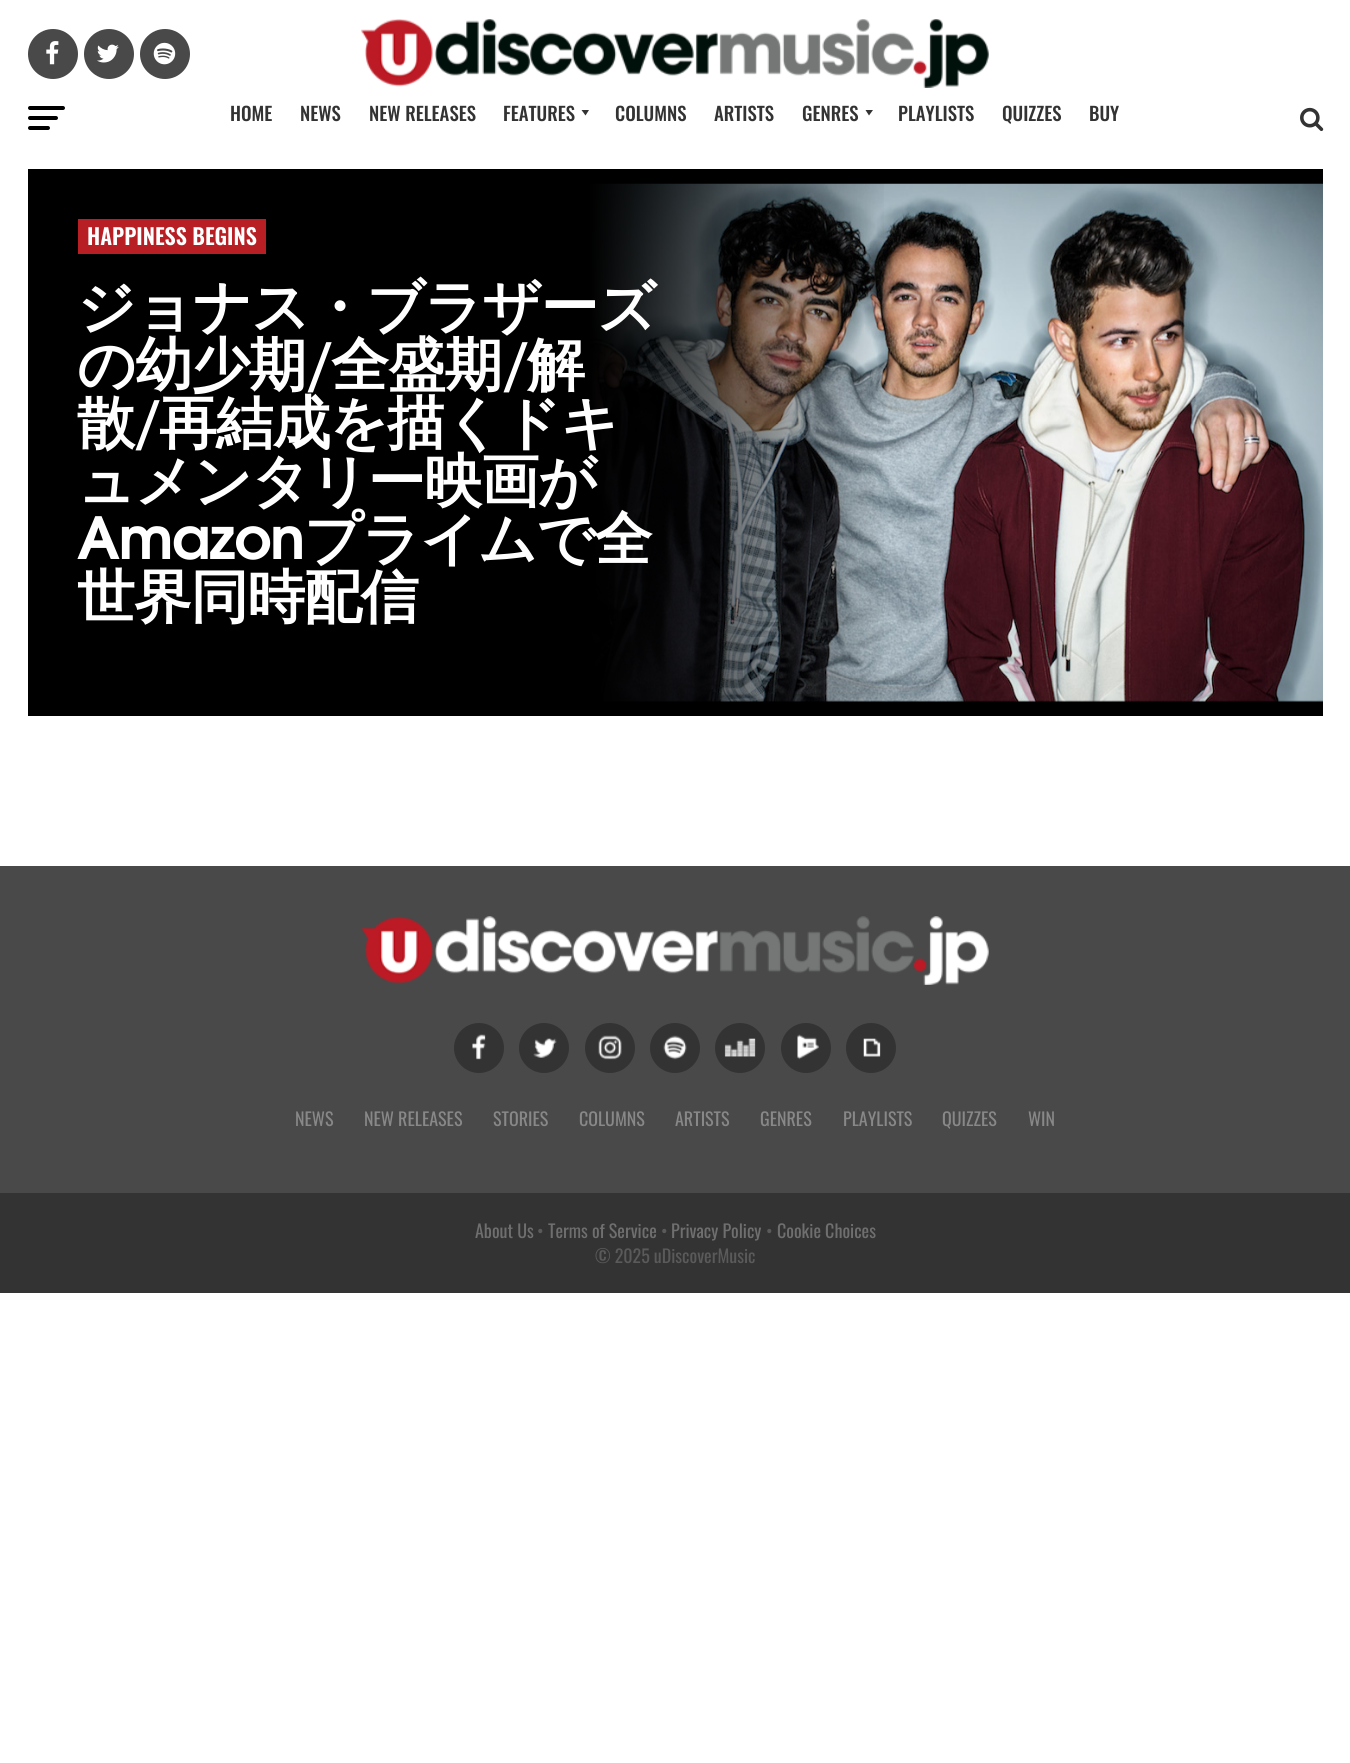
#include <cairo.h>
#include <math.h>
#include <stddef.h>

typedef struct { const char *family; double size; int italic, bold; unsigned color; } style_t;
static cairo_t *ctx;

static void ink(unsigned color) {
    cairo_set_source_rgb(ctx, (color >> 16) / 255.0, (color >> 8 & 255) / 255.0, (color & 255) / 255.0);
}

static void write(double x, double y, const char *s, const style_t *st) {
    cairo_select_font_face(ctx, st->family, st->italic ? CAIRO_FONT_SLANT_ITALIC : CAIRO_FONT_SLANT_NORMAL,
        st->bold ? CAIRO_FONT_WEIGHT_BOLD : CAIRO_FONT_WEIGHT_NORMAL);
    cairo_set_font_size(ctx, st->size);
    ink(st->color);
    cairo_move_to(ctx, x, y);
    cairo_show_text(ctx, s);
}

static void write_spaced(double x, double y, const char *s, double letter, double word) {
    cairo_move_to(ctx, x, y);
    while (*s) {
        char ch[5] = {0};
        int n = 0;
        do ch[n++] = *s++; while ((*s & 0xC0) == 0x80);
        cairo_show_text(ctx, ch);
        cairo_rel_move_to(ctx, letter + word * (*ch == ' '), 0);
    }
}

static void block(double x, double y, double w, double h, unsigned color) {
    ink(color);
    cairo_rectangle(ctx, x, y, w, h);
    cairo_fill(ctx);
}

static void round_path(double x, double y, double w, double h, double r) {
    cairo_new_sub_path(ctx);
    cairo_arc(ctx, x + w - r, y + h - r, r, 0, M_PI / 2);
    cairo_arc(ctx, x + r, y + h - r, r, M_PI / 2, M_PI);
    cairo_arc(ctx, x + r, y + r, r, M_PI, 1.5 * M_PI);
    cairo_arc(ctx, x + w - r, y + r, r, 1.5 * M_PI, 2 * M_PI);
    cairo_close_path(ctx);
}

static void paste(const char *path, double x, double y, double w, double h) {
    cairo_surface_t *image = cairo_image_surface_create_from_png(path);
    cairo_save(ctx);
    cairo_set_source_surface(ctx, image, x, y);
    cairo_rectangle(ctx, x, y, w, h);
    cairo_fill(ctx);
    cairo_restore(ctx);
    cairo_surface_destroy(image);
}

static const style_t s1 = {"Oswald Medium", 18.75, 0, 0, 0x333333};
static const style_t s2 = {"Oswald SemiBold", 22, 0, 0, 0xffffff};
static const style_t s3 = {"Oswald", 18, 0, 0, 0x888888};
static const style_t s4 = {"Oswald", 18, 0, 0, 0x6f6f6f};
static const style_t s5 = {"Oswald", 18, 0, 0, 0x5a5a5a};

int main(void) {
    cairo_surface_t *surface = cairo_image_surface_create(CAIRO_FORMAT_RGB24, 1350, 1763);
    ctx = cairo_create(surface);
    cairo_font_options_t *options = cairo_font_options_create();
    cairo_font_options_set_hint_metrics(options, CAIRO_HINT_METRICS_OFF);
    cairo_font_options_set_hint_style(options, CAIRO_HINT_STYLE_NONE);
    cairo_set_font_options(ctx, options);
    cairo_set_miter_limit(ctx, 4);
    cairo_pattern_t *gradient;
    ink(0xffffff);
    cairo_paint(ctx);
    ink(0x494949);
    cairo_arc(ctx, 53, 54, 25, 0, 2 * M_PI);
    cairo_fill(ctx);
    paste("pic1.png", 46, 41, 13, 24);
    cairo_arc(ctx, 109, 54, 25, 0, 2 * M_PI);
    cairo_fill(ctx);
    paste("pic2.png", 97, 44, 22, 19);
    cairo_arc(ctx, 165, 54, 25, 0, 2 * M_PI);
    cairo_fill(ctx);
    paste("pic3.png", 153, 42, 23, 23);
    paste("pic4.png", 361, 19, 628, 69);
    ink(0x000000);
    round_path(28, 106, 37, 4, 2);
    cairo_fill(ctx);
    round_path(28, 116, 30, 4, 2);
    cairo_fill(ctx);
    round_path(28, 126, 22, 4, 2);
    cairo_fill(ctx);
    write(230, 121, "HOME", &s1);
    write(300, 121, "NEWS", &s1);
    write(369, 121, "NEW RELEASES", &s1);
    write(503, 121, "FEATURES", &s1);
    cairo_new_path(ctx);
    cairo_move_to(ctx, 589, 110);
    cairo_line_to(ctx, 585.5, 115.5);
    cairo_line_to(ctx, 581.5, 110);
    cairo_close_path(ctx);
    cairo_fill(ctx);
    write(615, 121, "COLUMNS", &s1);
    write(714, 121, "ARTISTS", &s1);
    write(802, 121, "GENRES", &s1);
    cairo_new_path(ctx);
    cairo_move_to(ctx, 873, 110);
    cairo_line_to(ctx, 869, 115.5);
    cairo_line_to(ctx, 865.5, 110);
    cairo_close_path(ctx);
    cairo_fill(ctx);
    write(898, 121, "PLAYLISTS", &s1);
    write(1002, 121, "QUIZZES", &s1);
    write(1089, 121, "BUY", &s1);
    paste("pic5.png", 1300, 107, 24, 25);
    block(28, 169, 1295, 547, 0x000000);
    block(78, 219, 188, 35, 0xb71f25);
    write(87, 245, "HAPPINESS BEGINS", &s2);
    paste("pic6.png", 590, 183, 733, 519);
    gradient = cairo_pattern_create_linear(891, 443, 459, 443);
    cairo_pattern_add_color_stop_rgba(gradient, 0, 0, 0, 0, 0);
    cairo_pattern_add_color_stop_rgba(gradient, 0.7, 0, 0, 0, 1);
    cairo_pattern_add_color_stop_rgba(gradient, 1, 0, 0, 0, 1);
    cairo_set_source(ctx, gradient);
    cairo_pattern_destroy(gradient);
    cairo_rectangle(ctx, 590, 183, 294, 519);
    cairo_fill(ctx);
    cairo_select_font_face(ctx, "WenQuanYi Zen Hei", CAIRO_FONT_SLANT_NORMAL, CAIRO_FONT_WEIGHT_BOLD);
    cairo_set_font_size(ctx, 58);
    ink(0xffffff);
    write_spaced(77, 327, "ジョナス・ブラザーズ", -1.25, 0);
    write_spaced(77, 385, "の幼少期", -1.25, 0);
    cairo_select_font_face(ctx, "TeX Gyre Adventor", CAIRO_FONT_SLANT_NORMAL, CAIRO_FONT_WEIGHT_BOLD);
    write_spaced(306, 385, "/", -1.25, 0);
    cairo_select_font_face(ctx, "WenQuanYi Zen Hei", CAIRO_FONT_SLANT_NORMAL, CAIRO_FONT_WEIGHT_BOLD);
    write_spaced(331, 385, "全盛期", -1.25, 0);
    cairo_select_font_face(ctx, "TeX Gyre Adventor", CAIRO_FONT_SLANT_NORMAL, CAIRO_FONT_WEIGHT_BOLD);
    write_spaced(502, 385, "/", -1.25, 0);
    cairo_select_font_face(ctx, "WenQuanYi Zen Hei", CAIRO_FONT_SLANT_NORMAL, CAIRO_FONT_WEIGHT_BOLD);
    write_spaced(527, 385, "解", -1.25, 0);
    write_spaced(77, 443, "散", -1.25, 0);
    cairo_select_font_face(ctx, "TeX Gyre Adventor", CAIRO_FONT_SLANT_NORMAL, CAIRO_FONT_WEIGHT_BOLD);
    write_spaced(134, 443, "/", -1.25, 0);
    cairo_select_font_face(ctx, "WenQuanYi Zen Hei", CAIRO_FONT_SLANT_NORMAL, CAIRO_FONT_WEIGHT_BOLD);
    write_spaced(159, 443, "再結成を描くドキ", -1.25, 0);
    write_spaced(77, 501, "ュメンタリー映画が", -1.25, 0);
    cairo_select_font_face(ctx, "TeX Gyre Adventor", CAIRO_FONT_SLANT_NORMAL, CAIRO_FONT_WEIGHT_BOLD);
    write_spaced(77, 559, "Amazon", -1.25, 0);
    cairo_select_font_face(ctx, "WenQuanYi Zen Hei", CAIRO_FONT_SLANT_NORMAL, CAIRO_FONT_WEIGHT_BOLD);
    write_spaced(304, 559, "プライムで全", -1.25, 0);
    write_spaced(77, 617, "世界同時配信", -1.25, 0);
    block(0, 866, 1350, 327, 0x494949);
    paste("pic7.png", 361, 916, 628, 69);
    ink(0x333333);
    cairo_arc(ctx, 479, 1048, 25, 0, 2 * M_PI);
    cairo_fill(ctx);
    paste("pic8.png", 472, 1034, 14, 26);
    cairo_arc(ctx, 544, 1048, 25, 0, 2 * M_PI);
    cairo_fill(ctx);
    paste("pic9.png", 533, 1038, 24, 20);
    cairo_arc(ctx, 610, 1048, 25, 0, 2 * M_PI);
    cairo_fill(ctx);
    paste("pic10.png", 598, 1035, 24, 25);
    cairo_arc(ctx, 675, 1048, 25, 0, 2 * M_PI);
    cairo_fill(ctx);
    paste("pic11.png", 663, 1035, 24, 25);
    cairo_arc(ctx, 740, 1048, 25, 0, 2 * M_PI);
    cairo_fill(ctx);
    paste("pic12.png", 724, 1038, 32, 19);
    cairo_arc(ctx, 806, 1048, 25, 0, 2 * M_PI);
    cairo_fill(ctx);
    paste("pic13.png", 797, 1034, 22, 26);
    cairo_arc(ctx, 871, 1048, 25, 0, 2 * M_PI);
    cairo_fill(ctx);
    paste("pic14.png", 863, 1038, 18, 19);
    write(295, 1126, "NEWS", &s3);
    write(364, 1126, "NEW RELEASES", &s3);
    write(493, 1126, "STORIES", &s3);
    write(579, 1126, "COLUMNS", &s3);
    write(675, 1126, "ARTISTS", &s3);
    write(760, 1126, "GENRES", &s3);
    write(843, 1126, "PLAYLISTS", &s3);
    write(942, 1126, "QUIZZES", &s3);
    write(1028, 1126, "WIN", &s3);
    block(0, 1193, 1350, 100, 0x333333);
    write(475, 1238, "About Us", &s4);
    write(537, 1238, "•", &s5);
    write(548, 1238, "Terms of Service", &s4);
    write(661, 1238, "•", &s5);
    write(671, 1238, "Privacy Policy", &s4);
    write(766, 1238, "•", &s5);
    write(777, 1238, "Cookie Choices", &s4);
    write(595, 1263, "© 2025 uDiscoverMusic", &s5);
    cairo_surface_write_to_png(surface, "screenshot.png");
    cairo_font_options_destroy(options);
    cairo_destroy(ctx);
    cairo_surface_destroy(surface);
    return 0;
}
